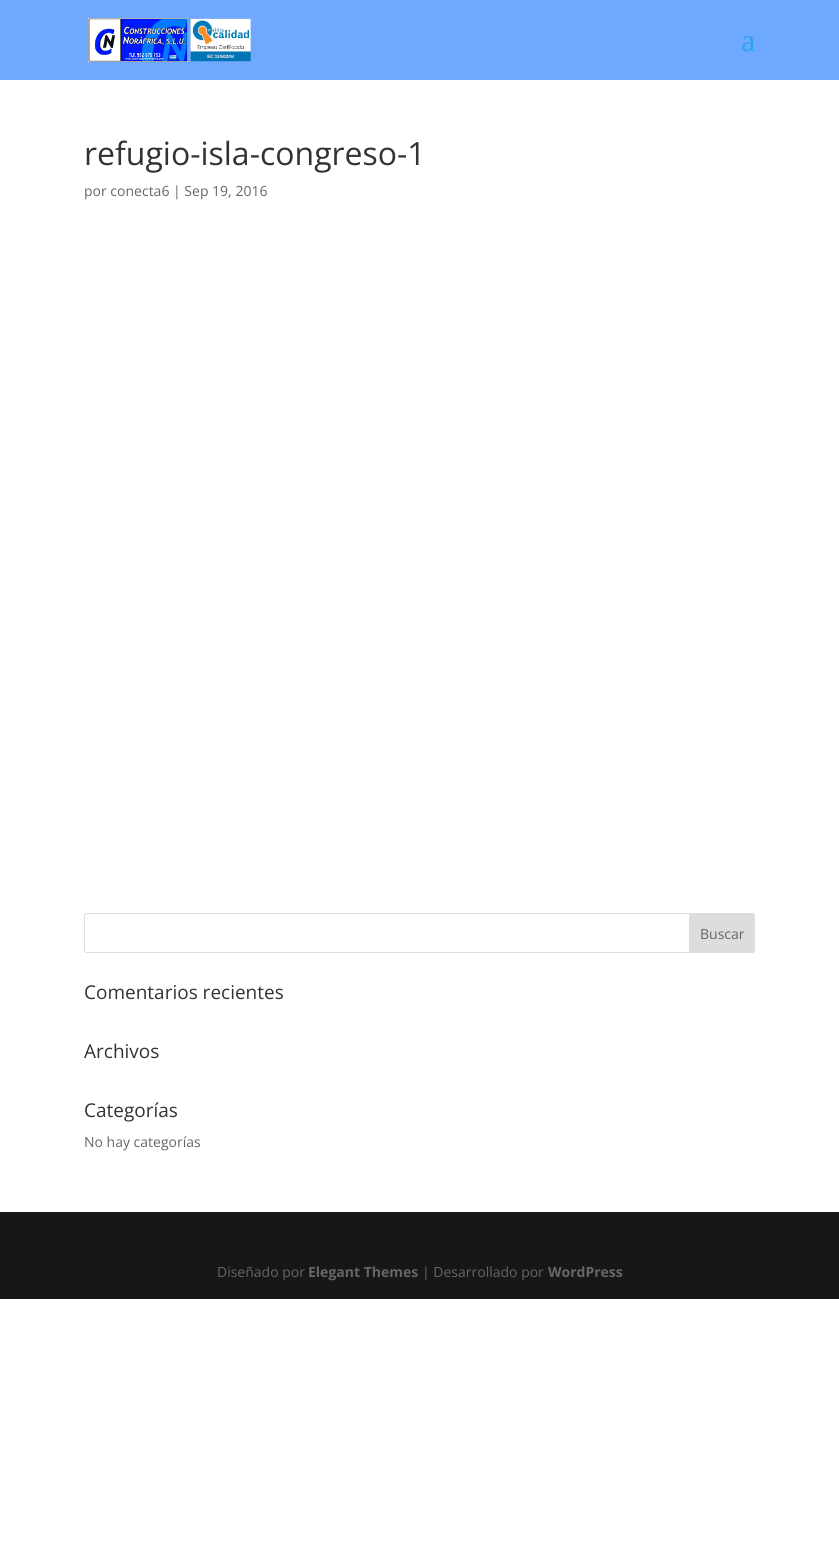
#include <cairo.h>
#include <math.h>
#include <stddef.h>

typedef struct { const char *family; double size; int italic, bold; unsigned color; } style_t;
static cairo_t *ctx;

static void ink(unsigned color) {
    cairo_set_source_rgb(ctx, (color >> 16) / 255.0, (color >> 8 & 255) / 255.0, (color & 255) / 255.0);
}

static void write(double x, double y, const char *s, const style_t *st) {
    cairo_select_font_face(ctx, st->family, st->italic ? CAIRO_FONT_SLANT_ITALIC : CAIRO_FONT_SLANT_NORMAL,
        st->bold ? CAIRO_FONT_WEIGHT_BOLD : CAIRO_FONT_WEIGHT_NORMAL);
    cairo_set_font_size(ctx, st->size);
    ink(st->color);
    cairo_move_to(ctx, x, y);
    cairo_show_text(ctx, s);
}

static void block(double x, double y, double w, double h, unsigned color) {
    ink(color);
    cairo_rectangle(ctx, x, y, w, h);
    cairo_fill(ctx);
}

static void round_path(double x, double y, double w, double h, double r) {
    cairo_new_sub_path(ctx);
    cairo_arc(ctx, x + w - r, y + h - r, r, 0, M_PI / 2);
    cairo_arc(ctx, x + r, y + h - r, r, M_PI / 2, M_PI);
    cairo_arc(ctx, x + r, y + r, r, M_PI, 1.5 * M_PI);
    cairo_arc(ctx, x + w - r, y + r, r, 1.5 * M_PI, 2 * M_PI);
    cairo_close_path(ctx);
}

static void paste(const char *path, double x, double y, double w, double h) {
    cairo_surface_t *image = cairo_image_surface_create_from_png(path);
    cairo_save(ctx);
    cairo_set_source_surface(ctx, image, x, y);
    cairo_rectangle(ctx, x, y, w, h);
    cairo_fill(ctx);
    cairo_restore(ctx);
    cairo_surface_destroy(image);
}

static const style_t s1 = {"Liberation Serif", 32, 0, 0, 0x2ea3f2};
static const style_t s2 = {"Open Sans", 32, 0, 0, 0x333333};
static const style_t s3 = {"Open Sans", 14, 0, 0, 0x666666};
static const style_t s4 = {"Open Sans", 19, 0, 0, 0x333333};
static const style_t s5 = {"Open Sans", 14, 0, 1, 0x666666};

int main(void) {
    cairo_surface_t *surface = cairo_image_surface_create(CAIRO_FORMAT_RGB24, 839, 1543);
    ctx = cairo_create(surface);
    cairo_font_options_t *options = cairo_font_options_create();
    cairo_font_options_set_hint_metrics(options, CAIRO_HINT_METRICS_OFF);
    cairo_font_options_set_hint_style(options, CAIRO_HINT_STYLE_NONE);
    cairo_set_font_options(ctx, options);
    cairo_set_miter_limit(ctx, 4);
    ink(0xffffff);
    cairo_paint(ctx);
    block(0, 0, 839, 80, 0x6ea8ff);
    paste("pic1.png", 88, 18, 163, 44);
    write(741, 51, "a", &s1);
    write(84, 165, "refugio-isla-congreso-1", &s2);
    write(84, 196, "por conecta6 | Sep 19, 2016", &s3);
    round_path(84.5, 913.5, 670, 39, 2.5);
    ink(0xdddddd);
    cairo_set_line_width(ctx, 1);
    cairo_stroke(ctx);
    cairo_new_path(ctx);
    cairo_move_to(ctx, 689.5, 913.5);
    cairo_line_to(ctx, 752, 913.5);
    cairo_curve_to(ctx, 753.5, 913.5, 754.5, 914.5, 754.5, 916);
    cairo_line_to(ctx, 754.5, 950);
    cairo_curve_to(ctx, 754.5, 951.5, 753.5, 952.5, 752, 952.5);
    cairo_line_to(ctx, 689.5, 952.5);
    cairo_close_path(ctx);
    cairo_fill_preserve(ctx);
    cairo_stroke(ctx);
    write(700, 939, "Buscar", &s3);
    write(84, 999, "Comentarios recientes", &s4);
    write(84, 1058, "Archivos", &s4);
    write(84, 1117, "Categorías", &s4);
    write(84, 1147, "No hay categorías", &s3);
    block(0, 1212, 839, 87, 0x171717);
    write(217, 1277, "Diseñado por", &s3);
    write(308, 1277, "Elegant Themes", &s5);
    write(422, 1277, "| Desarrollado por", &s3);
    write(548, 1277, "WordPress", &s5);
    cairo_surface_write_to_png(surface, "screenshot.png");
    cairo_font_options_destroy(options);
    cairo_destroy(ctx);
    cairo_surface_destroy(surface);
    return 0;
}
